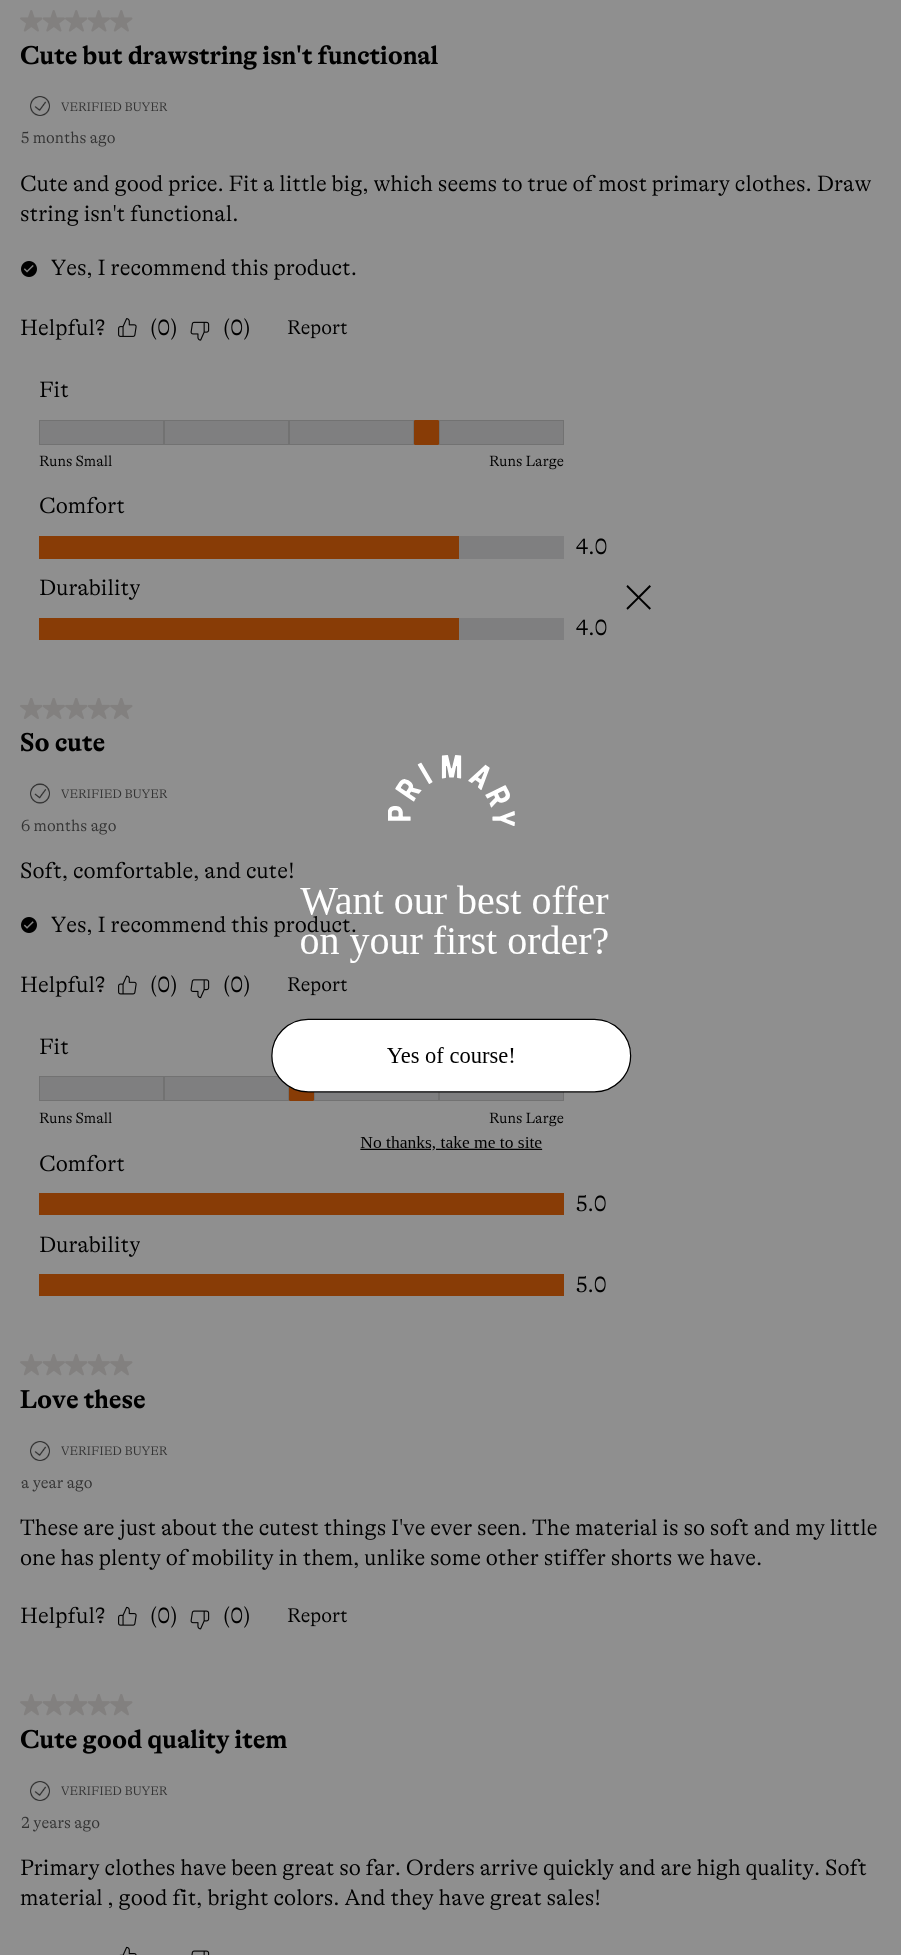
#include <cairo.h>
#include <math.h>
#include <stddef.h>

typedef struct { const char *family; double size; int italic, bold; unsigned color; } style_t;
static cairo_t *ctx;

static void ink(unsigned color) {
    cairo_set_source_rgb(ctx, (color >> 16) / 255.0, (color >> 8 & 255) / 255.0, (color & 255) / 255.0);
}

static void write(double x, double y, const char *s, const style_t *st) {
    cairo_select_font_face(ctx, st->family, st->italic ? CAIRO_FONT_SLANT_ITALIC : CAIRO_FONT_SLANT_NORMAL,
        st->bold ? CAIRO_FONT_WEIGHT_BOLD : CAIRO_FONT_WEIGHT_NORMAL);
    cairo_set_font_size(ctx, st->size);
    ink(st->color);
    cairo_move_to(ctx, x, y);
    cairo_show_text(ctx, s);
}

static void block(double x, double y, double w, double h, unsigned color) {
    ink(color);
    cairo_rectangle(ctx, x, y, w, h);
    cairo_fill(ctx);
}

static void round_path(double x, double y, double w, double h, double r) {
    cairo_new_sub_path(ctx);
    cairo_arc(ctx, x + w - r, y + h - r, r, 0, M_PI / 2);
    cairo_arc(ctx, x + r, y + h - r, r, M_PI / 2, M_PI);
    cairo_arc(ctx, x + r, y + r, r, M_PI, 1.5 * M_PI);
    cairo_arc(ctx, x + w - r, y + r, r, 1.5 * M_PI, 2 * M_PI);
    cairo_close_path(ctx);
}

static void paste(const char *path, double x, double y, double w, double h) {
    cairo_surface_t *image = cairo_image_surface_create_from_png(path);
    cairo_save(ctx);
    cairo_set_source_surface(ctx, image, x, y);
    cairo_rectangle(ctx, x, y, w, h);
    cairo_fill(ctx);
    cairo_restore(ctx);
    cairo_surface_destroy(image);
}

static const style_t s1 = {"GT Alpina", 26.25, 0, 1, 0x000000};
static const style_t s2 = {"GT Alpina Light", 12.5, 0, 0, 0x333333};
static const style_t s3 = {"GT Alpina Light", 16.25, 0, 0, 0x333333};
static const style_t s4 = {"GT Alpina Light", 22.5, 0, 0, 0x000000};
static const style_t s5 = {"GT Alpina Light", 20, 0, 0, 0x000000};
static const style_t s6 = {"GT Alpina Light", 15, 0, 0, 0x000000};

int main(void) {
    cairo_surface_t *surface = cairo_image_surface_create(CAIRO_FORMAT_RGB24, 901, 1955);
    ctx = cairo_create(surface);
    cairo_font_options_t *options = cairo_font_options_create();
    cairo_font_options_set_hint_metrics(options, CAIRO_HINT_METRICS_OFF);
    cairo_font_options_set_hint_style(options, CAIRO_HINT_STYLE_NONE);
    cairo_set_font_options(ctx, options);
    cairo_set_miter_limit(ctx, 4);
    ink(0x8f8f8f);
    cairo_paint(ctx);
    paste("pic1.png", 20, 10, 23, 22);
    paste("pic2.png", 43, 10, 22, 22);
    paste("pic1.png", 65, 10, 23, 22);
    paste("pic2.png", 88, 10, 22, 22);
    paste("pic1.png", 110, 10, 23, 22);
    write(20, 64, "Cute but drawstring isn't functional", &s1);
    paste("pic3.png", 30, 96, 20, 20);
    write(61, 111, "VERIFIED BUYER", &s2);
    write(21, 143, "5 months ago", &s3);
    write(20, 191, "Cute and good price. Fit a little big, which seems to true of most primary clothes. Draw", &s4);
    write(20, 221, "string isn't functional.", &s4);
    paste("pic4.png", 21, 261, 16, 16);
    write(51, 275, "Yes, I recommend this product.", &s4);
    write(20, 335, "Helpful?", &s4);
    paste("pic5.png", 118, 318, 19, 19);
    write(150, 335, "(0)", &s4);
    paste("pic6.png", 190, 321, 20, 20);
    write(223, 335, "(0)", &s4);
    write(287, 334, "Report", &s5);
    write(39, 397, "Fit", &s4);
    ink(0x7f7f80);
    cairo_rectangle(ctx, 39.5, 420.5, 124, 24);
    cairo_fill_preserve(ctx);
    ink(0x727272);
    cairo_set_line_width(ctx, 1);
    cairo_stroke(ctx);
    ink(0x7f7f80);
    cairo_rectangle(ctx, 164.5, 420.5, 124, 24);
    cairo_fill_preserve(ctx);
    ink(0x727272);
    cairo_stroke(ctx);
    ink(0x7f7f80);
    cairo_rectangle(ctx, 289.5, 420.5, 124, 24);
    cairo_fill_preserve(ctx);
    ink(0x727272);
    cairo_stroke(ctx);
    ink(0x883c06);
    round_path(414, 420, 25, 25, 1);
    cairo_fill(ctx);
    ink(0x7f7f80);
    cairo_rectangle(ctx, 439.5, 420.5, 124, 24);
    cairo_fill_preserve(ctx);
    ink(0x727272);
    cairo_stroke(ctx);
    write(39, 466, "Runs Small", &s6);
    write(489, 466, "Runs Large", &s6);
    write(39, 513, "Comfort", &s4);
    block(459, 536, 105, 23, 0x7f7f80);
    block(39, 536, 420, 23, 0x883c06);
    write(576, 554, "4.0", &s4);
    write(39, 595, "Durability", &s4);
    block(459, 618, 105, 22, 0x7f7f80);
    block(39, 618, 420, 22, 0x883c06);
    write(576, 635, "4.0", &s4);
    paste("pic7.png", 20, 698, 23, 21);
    paste("pic8.png", 43, 698, 22, 21);
    paste("pic7.png", 65, 698, 23, 21);
    paste("pic8.png", 88, 698, 22, 21);
    paste("pic7.png", 110, 698, 23, 21);
    write(20, 751, "So cute", &s1);
    paste("pic9.png", 30, 783, 20, 21);
    write(61, 798, "VERIFIED BUYER", &s2);
    write(21, 831, "6 months ago", &s3);
    write(20, 878, "Soft, comfortable, and cute!", &s4);
    paste("pic10.png", 21, 917, 16, 16);
    write(51, 932, "Yes, I recommend this product.", &s4);
    write(20, 992, "Helpful?", &s4);
    paste("pic11.png", 118, 975, 19, 20);
    write(150, 992, "(0)", &s4);
    paste("pic12.png", 190, 979, 20, 20);
    write(223, 992, "(0)", &s4);
    write(287, 991, "Report", &s5);
    write(39, 1054, "Fit", &s4);
    ink(0x7f7f80);
    cairo_rectangle(ctx, 39.5, 1076.5, 124, 24);
    cairo_fill_preserve(ctx);
    ink(0x727272);
    cairo_stroke(ctx);
    ink(0x7f7f80);
    cairo_rectangle(ctx, 164.5, 1076.5, 124, 24);
    cairo_fill_preserve(ctx);
    ink(0x727272);
    cairo_stroke(ctx);
    ink(0x883c06);
    round_path(289, 1076, 25, 25, 1);
    cairo_fill(ctx);
    block(315, 1092, 123, 8, 0x7f7f80);
    cairo_rectangle(ctx, 314.5, 1076.5, 124, 24);
    ink(0x727272);
    cairo_stroke(ctx);
    block(440, 1092, 123, 8, 0x7f7f80);
    cairo_rectangle(ctx, 439.5, 1076.5, 124, 24);
    ink(0x727272);
    cairo_stroke(ctx);
    write(39, 1123, "Runs Small", &s6);
    write(489, 1123, "Runs Large", &s6);
    write(39, 1171, "Comfort", &s4);
    block(39, 1193, 525, 22, 0x883c06);
    write(576, 1211, "5.0", &s4);
    write(39, 1252, "Durability", &s4);
    block(39, 1274, 525, 22, 0x883c06);
    write(576, 1292, "5.0", &s4);
    paste("pic13.png", 20, 1354, 23, 22);
    paste("pic14.png", 43, 1354, 22, 22);
    paste("pic13.png", 65, 1354, 23, 22);
    paste("pic14.png", 88, 1354, 22, 22);
    paste("pic13.png", 110, 1354, 23, 22);
    write(20, 1408, "Love these", &s1);
    paste("pic3.png", 30, 1441, 20, 20);
    write(61, 1455, "VERIFIED BUYER", &s2);
    write(21, 1488, "a year ago", &s3);
    write(20, 1535, "These are just about the cutest things I've ever seen. The material is so soft and my little", &s4);
    write(20, 1565, "one has plenty of mobility in them, unlike some other stiffer shorts we have.", &s4);
    write(20, 1623, "Helpful?", &s4);
    paste("pic15.png", 118, 1606, 19, 20);
    write(150, 1623, "(0)", &s4);
    paste("pic16.png", 190, 1610, 20, 20);
    write(223, 1623, "(0)", &s4);
    write(287, 1622, "Report", &s5);
    paste("pic13.png", 20, 1694, 23, 22);
    paste("pic14.png", 43, 1694, 22, 22);
    paste("pic13.png", 65, 1694, 23, 22);
    paste("pic14.png", 88, 1694, 22, 22);
    paste("pic13.png", 110, 1694, 23, 22);
    write(20, 1748, "Cute good quality item", &s1);
    paste("pic3.png", 30, 1781, 20, 20);
    write(61, 1795, "VERIFIED BUYER", &s2);
    write(21, 1828, "2 years ago", &s3);
    write(20, 1875, "Primary clothes have been great so far. Orders arrive quickly and are high quality. Soft", &s4);
    write(20, 1905, "material , good fit, bright colors. And they have great sales!", &s4);
    paste("pic17.png", 119, 1946, 18, 9);
    paste("pic18.png", 191, 1950, 19, 5);
    paste("pic19.png", 271, 585, 380, 566);
    cairo_surface_write_to_png(surface, "screenshot.png");
    cairo_font_options_destroy(options);
    cairo_destroy(ctx);
    cairo_surface_destroy(surface);
    return 0;
}
